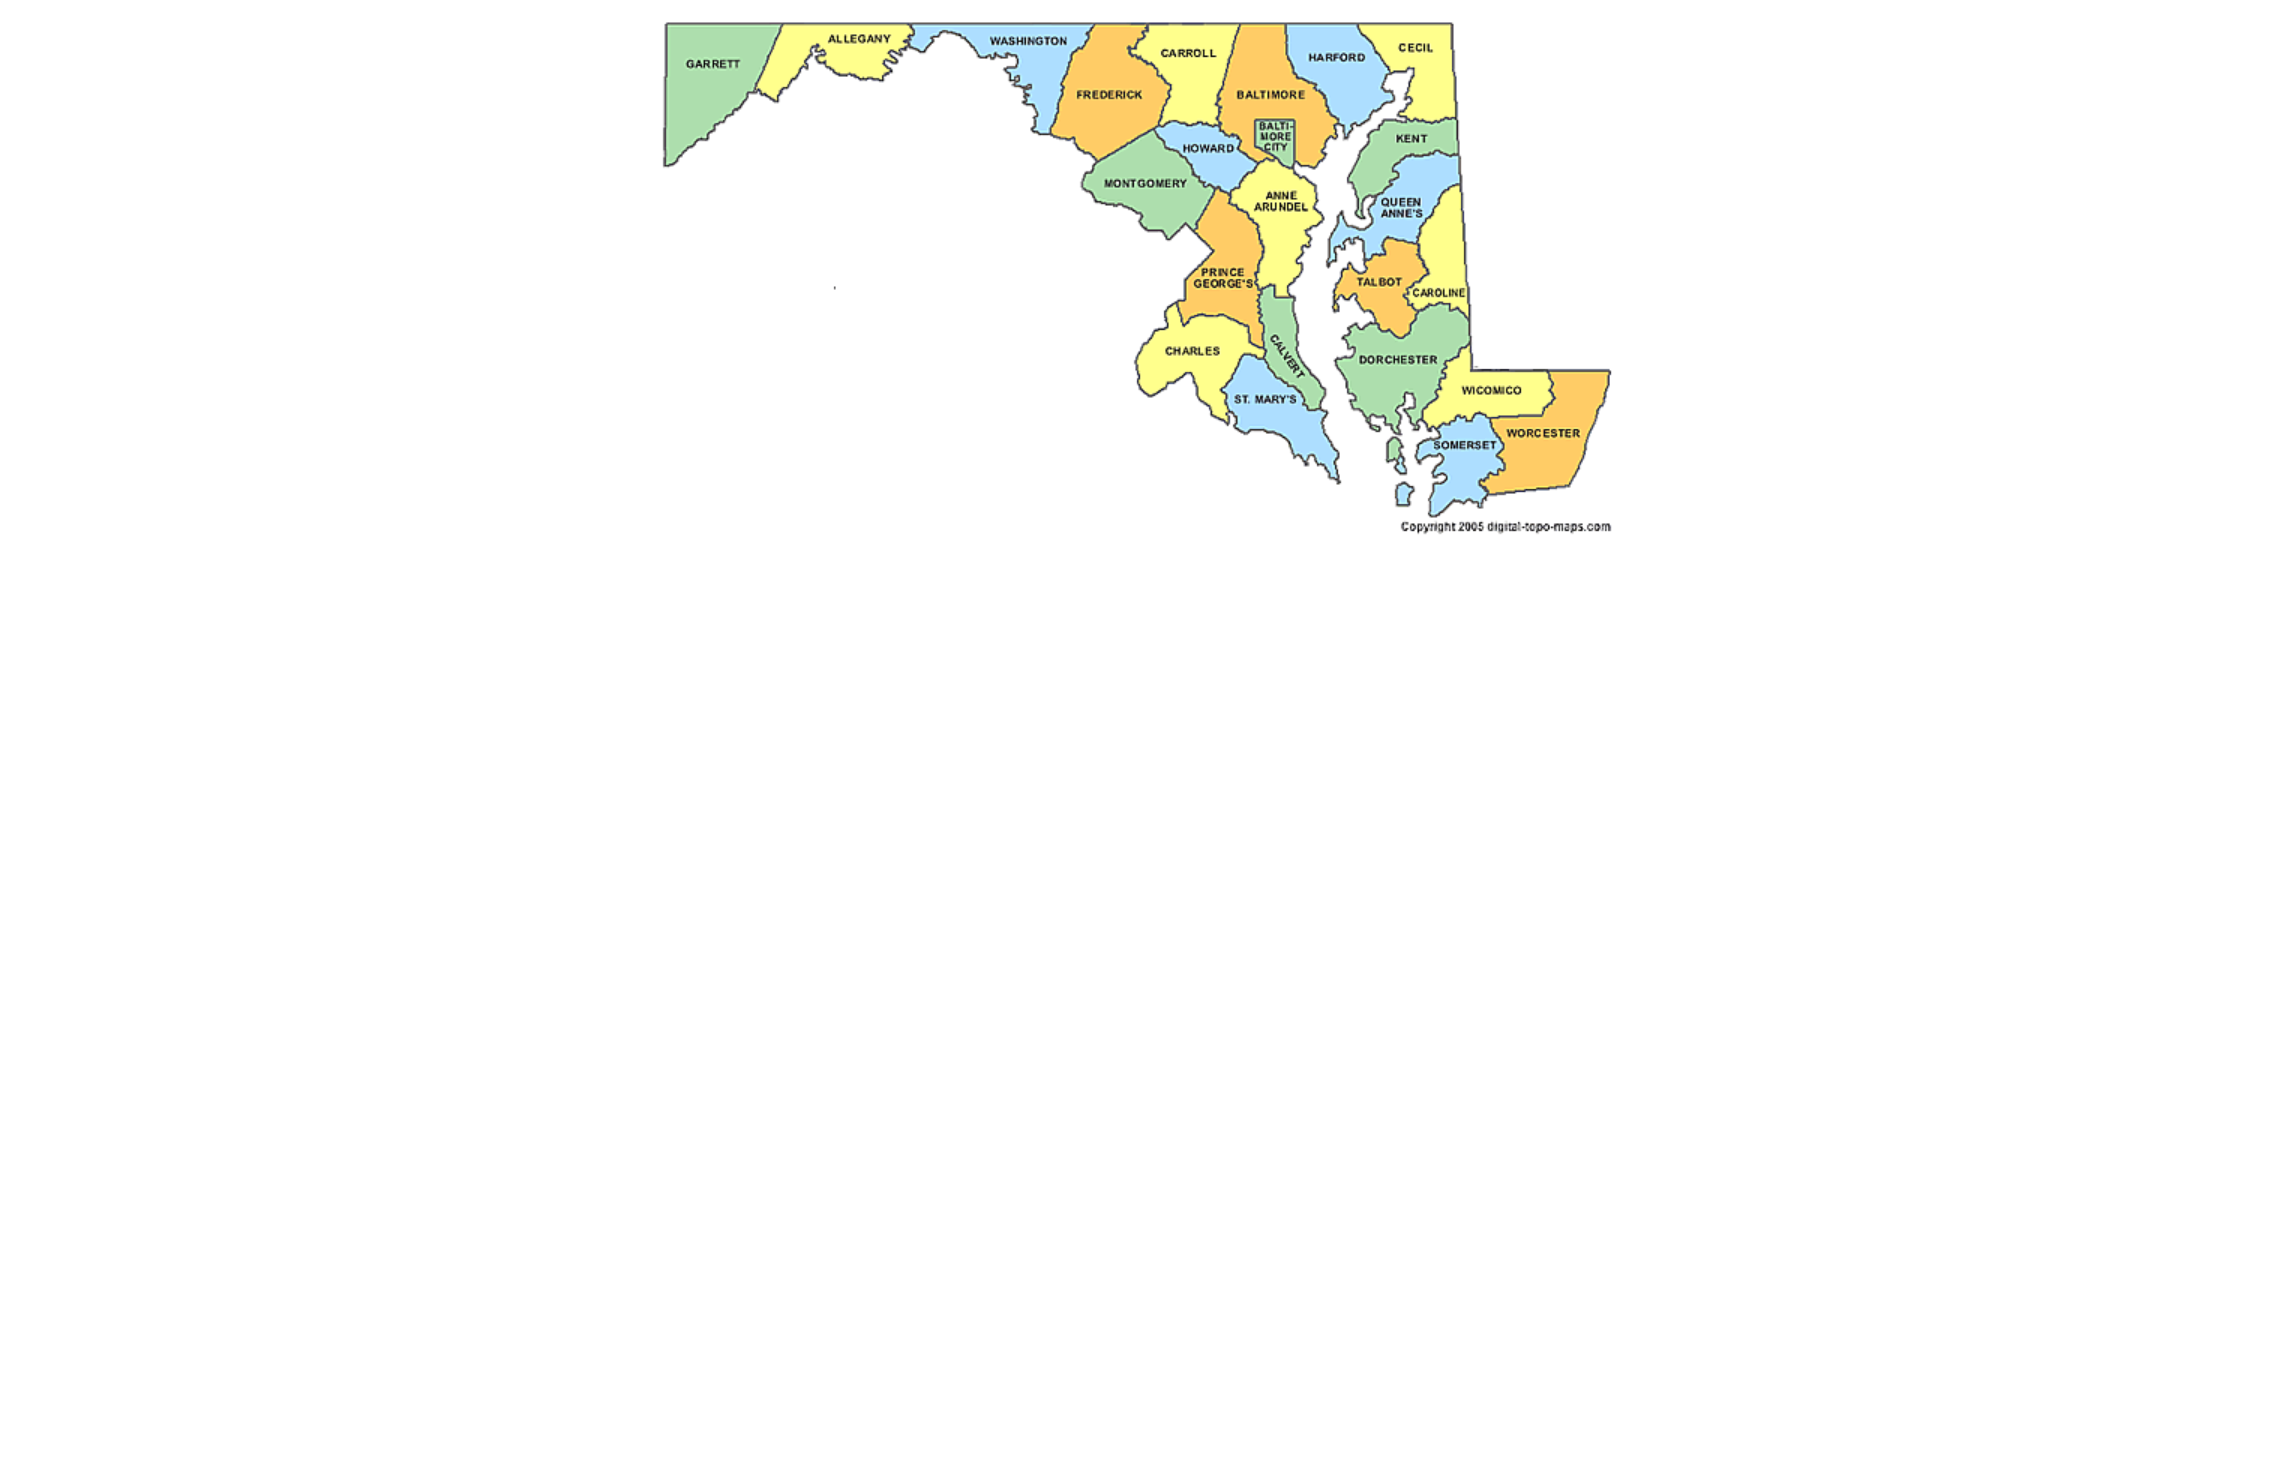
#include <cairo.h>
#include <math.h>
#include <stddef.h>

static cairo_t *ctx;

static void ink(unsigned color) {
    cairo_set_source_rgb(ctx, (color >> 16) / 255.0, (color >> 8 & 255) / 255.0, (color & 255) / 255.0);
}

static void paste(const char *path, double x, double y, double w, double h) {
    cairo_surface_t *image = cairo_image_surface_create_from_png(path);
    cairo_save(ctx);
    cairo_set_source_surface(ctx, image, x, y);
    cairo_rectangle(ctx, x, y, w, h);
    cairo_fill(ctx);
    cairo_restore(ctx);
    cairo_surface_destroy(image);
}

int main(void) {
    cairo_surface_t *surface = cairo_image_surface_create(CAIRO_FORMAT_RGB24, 2277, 1473);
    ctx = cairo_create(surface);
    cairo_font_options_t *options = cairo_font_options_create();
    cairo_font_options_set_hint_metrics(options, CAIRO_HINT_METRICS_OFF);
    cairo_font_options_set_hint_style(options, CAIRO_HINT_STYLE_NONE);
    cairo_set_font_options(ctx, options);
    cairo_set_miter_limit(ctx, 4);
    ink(0xffffff);
    cairo_paint(ctx);
    paste("pic1.png", 662, 22, 950, 513);
    cairo_surface_write_to_png(surface, "screenshot.png");
    cairo_font_options_destroy(options);
    cairo_destroy(ctx);
    cairo_surface_destroy(surface);
    return 0;
}
